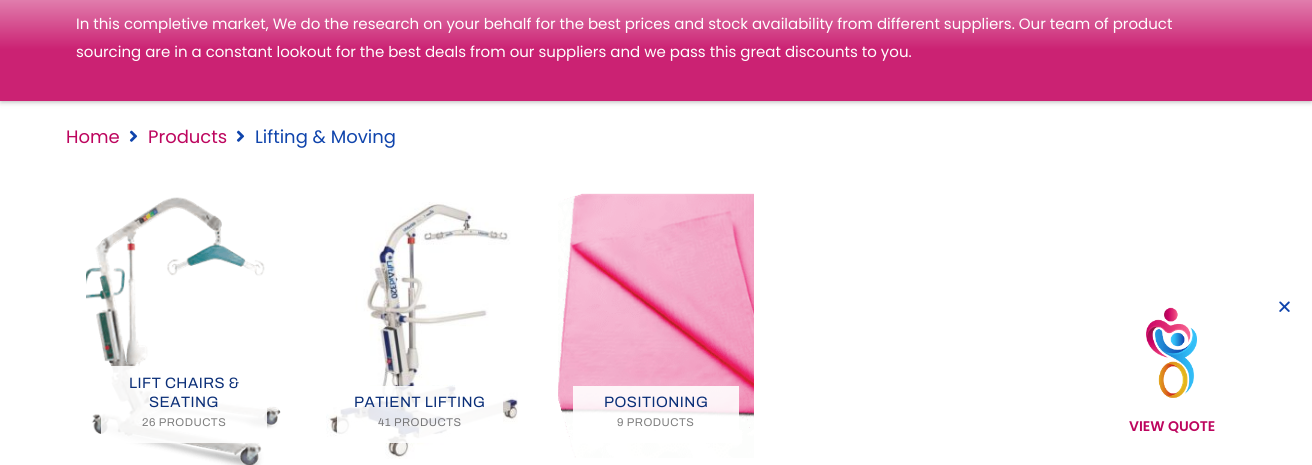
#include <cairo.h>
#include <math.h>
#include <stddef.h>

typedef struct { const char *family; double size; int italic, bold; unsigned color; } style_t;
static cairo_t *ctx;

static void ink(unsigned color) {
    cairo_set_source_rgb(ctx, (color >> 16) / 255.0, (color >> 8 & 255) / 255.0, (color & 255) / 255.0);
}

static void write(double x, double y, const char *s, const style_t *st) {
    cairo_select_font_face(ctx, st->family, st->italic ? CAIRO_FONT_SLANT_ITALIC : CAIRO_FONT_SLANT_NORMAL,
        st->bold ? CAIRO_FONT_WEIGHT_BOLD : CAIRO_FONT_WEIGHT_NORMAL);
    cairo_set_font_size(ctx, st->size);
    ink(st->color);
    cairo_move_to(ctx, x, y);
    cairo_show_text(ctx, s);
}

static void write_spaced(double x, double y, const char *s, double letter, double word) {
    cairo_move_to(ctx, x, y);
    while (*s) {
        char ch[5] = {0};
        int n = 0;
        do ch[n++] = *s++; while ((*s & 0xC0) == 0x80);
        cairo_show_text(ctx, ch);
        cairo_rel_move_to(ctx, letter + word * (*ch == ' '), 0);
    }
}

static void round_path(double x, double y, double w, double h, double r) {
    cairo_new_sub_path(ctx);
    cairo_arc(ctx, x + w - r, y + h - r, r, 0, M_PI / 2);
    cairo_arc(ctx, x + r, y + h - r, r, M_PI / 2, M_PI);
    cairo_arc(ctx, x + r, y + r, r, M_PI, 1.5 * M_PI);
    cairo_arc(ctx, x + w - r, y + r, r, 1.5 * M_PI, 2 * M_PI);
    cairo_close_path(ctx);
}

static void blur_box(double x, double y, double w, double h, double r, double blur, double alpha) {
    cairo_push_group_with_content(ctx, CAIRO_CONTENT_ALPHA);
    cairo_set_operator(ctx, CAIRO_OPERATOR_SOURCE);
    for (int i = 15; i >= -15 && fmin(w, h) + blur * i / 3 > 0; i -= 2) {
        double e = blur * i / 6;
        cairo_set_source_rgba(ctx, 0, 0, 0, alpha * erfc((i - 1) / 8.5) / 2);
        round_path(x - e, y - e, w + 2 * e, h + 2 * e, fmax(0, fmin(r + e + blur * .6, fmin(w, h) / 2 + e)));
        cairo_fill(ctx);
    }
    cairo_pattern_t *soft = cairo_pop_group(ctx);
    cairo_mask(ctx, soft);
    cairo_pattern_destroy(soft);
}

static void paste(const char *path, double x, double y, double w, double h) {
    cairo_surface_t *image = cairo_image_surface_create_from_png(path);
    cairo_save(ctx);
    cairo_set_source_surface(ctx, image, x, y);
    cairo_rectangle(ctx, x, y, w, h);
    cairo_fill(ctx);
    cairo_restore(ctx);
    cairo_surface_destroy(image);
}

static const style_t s1 = {"Poppins", 15, 0, 0, 0xffffff};
static const style_t s2 = {"Poppins", 18, 0, 0, 0xbd055e};
static const style_t s3 = {"Poppins", 18, 0, 0, 0x0f44ac};
static const style_t s4 = {"Poppins SemiBold", 14, 0, 0, 0xbd055e};

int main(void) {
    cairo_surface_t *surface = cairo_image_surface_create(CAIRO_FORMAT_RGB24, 1312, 465);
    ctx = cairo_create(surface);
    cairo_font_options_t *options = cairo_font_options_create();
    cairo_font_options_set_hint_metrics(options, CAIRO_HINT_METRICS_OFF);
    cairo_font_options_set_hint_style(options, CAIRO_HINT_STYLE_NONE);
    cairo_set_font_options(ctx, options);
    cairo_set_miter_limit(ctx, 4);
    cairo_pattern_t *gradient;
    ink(0xffffff);
    cairo_paint(ctx);
    ink(0x000000);
    blur_box(1, -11, 1310, 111, 0, 3.5, 0.5);
    gradient = cairo_pattern_create_linear(656, -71, 656, 101);
    cairo_pattern_add_color_stop_rgba(gradient, 0, 1, 1, 1, 1);
    cairo_pattern_add_color_stop_rgba(gradient, 0.7, 0.796, 0.133, 0.451, 1);
    cairo_set_source(ctx, gradient);
    cairo_pattern_destroy(gradient);
    cairo_rectangle(ctx, 0, 0, 1312, 101);
    cairo_fill(ctx);
    write(76, 29, "In this completive market, We do the research on your behalf for the best prices and stock availability from different suppliers. Our team of product", &s1);
    write(76, 57, "sourcing are in a constant lookout for the best deals from our suppliers and we pass this great discounts to you.", &s1);
    write(66, 143, "Home", &s2);
    paste("pic1.png", 129, 130, 9, 12);
    write(148, 143, "Products", &s2);
    paste("pic1.png", 236, 130, 9, 12);
    write(255, 143, "Lifting & Moving", &s3);
    paste("pic2.png", 86, 197, 195, 268);
    cairo_set_source_rgba(ctx, 1, 1, 1, 0.88);
    cairo_rectangle(ctx, 101, 366, 166, 77);
    cairo_fill(ctx);
    cairo_select_font_face(ctx, "Archivo", CAIRO_FONT_SLANT_NORMAL, CAIRO_FONT_WEIGHT_NORMAL);
    cairo_set_font_size(ctx, 15);
    ink(0x0b2f78);
    write_spaced(129, 388, "LIFT CHAIRS &", 0.5, 0);
    write_spaced(149, 407, "SEATING", 0.5, 0);
    cairo_set_font_size(ctx, 11.25);
    ink(0x7f7f7f);
    write_spaced(142, 426, "26 PRODUCTS", 0.5, 0);
    paste("pic3.png", 326, 202, 192, 257);
    cairo_set_source_rgba(ctx, 1, 1, 1, 0.88);
    cairo_rectangle(ctx, 337, 386, 166, 57);
    cairo_fill(ctx);
    cairo_set_font_size(ctx, 15);
    ink(0x0b2f78);
    write_spaced(354, 407, "PATIENT LIFTING", 0.5, 0);
    cairo_set_font_size(ctx, 11.25);
    ink(0x78787a);
    write_spaced(378, 426, "41 PRODUCTS", 0.5, 0);
    paste("pic4.png", 558, 193, 196, 265);
    cairo_set_source_rgba(ctx, 1, 1, 1, 0.88);
    cairo_rectangle(ctx, 573, 386, 166, 57);
    cairo_fill(ctx);
    cairo_set_font_size(ctx, 15);
    ink(0x0b2f78);
    write_spaced(604, 407, "POSITIONING", 0.5, 0);
    cairo_set_font_size(ctx, 11.25);
    ink(0x7f7f7f);
    write_spaced(617, 426, "9 PRODUCTS", 0.5, 0);
    paste("pic5.png", 1279, 301, 11, 11);
    paste("pic6.png", 1146, 307, 51, 91);
    write(1129, 431, "VIEW QUOTE", &s4);
    cairo_surface_write_to_png(surface, "screenshot.png");
    cairo_font_options_destroy(options);
    cairo_destroy(ctx);
    cairo_surface_destroy(surface);
    return 0;
}
